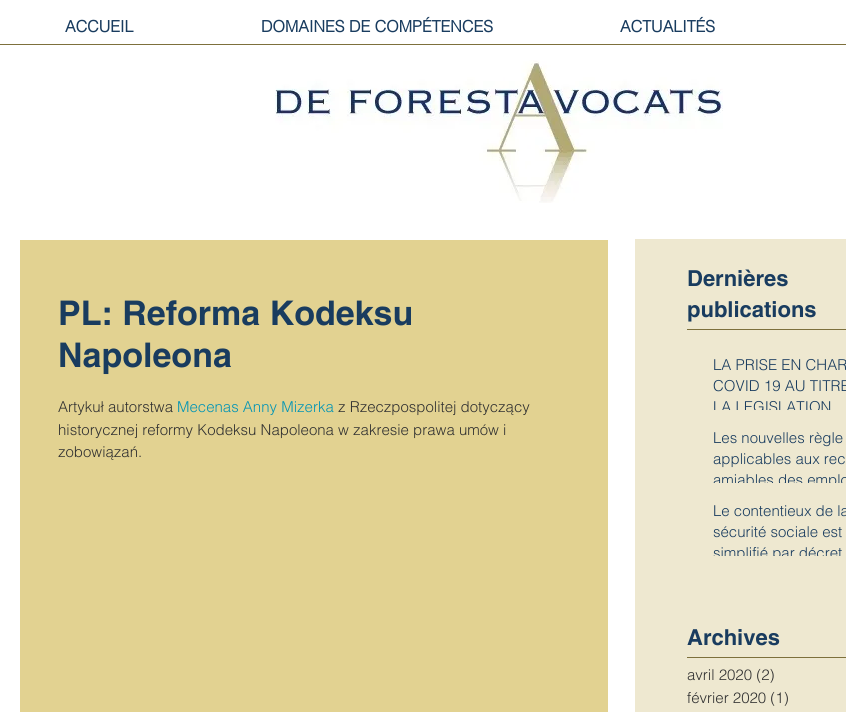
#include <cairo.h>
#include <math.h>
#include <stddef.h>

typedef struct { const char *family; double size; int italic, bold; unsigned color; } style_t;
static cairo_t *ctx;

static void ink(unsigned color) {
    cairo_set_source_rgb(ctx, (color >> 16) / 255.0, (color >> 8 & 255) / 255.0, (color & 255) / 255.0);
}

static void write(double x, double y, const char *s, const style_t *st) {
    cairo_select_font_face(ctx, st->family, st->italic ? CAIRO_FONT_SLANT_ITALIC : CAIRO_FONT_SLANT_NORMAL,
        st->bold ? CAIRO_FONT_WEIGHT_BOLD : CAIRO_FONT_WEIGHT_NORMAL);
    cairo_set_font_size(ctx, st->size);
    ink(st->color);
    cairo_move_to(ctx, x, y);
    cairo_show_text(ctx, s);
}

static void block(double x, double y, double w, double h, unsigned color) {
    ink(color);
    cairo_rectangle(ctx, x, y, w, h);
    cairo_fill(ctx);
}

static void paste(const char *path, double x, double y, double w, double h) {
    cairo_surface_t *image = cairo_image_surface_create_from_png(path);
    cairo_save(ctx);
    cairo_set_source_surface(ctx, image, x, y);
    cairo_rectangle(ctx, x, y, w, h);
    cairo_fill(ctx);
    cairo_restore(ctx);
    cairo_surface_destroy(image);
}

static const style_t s1 = {"helvetica", 16, 0, 1, 0x193c5f};
static const style_t s2 = {"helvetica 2", 34, 0, 1, 0x193c5f};
static const style_t s3 = {"helvetica Light", 15, 0, 0, 0x313131};
static const style_t s4 = {"helvetica Light", 15, 0, 0, 0x0294b5};
static const style_t s5 = {"helvetica 2", 22, 0, 1, 0x193c5f};
static const style_t s6 = {"helvetica Light", 15, 0, 0, 0x193c5f};

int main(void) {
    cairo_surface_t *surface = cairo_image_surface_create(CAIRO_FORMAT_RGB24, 846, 712);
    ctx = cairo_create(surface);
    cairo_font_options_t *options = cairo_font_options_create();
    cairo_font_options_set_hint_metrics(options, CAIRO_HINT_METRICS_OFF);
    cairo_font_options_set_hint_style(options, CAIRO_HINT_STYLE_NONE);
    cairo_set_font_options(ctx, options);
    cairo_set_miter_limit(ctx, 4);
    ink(0xffffff);
    cairo_paint(ctx);
    write(65, 32, "ACCUEIL", &s1);
    write(261, 32, "DOMAINES DE COMPÉTENCES", &s1);
    write(620, 32, "ACTUALITÉS", &s1);
    block(0, 44, 846, 1, 0x7d703c);
    paste("pic1.png", 275, 60, 448, 143);
    block(20, 240, 588, 472, 0xe2d291);
    write(58, 325, "PL: Reforma Kodeksu", &s2);
    write(58, 367, "Napoleona", &s2);
    write(58, 412, "Artykuł autorstwa", &s3);
    write(177, 412, "Mecenas Anny Mizerka", &s4);
    write(338, 412, "z Rzeczpospolitej dotyczący", &s3);
    write(58, 435, "historycznej reformy Kodeksu Napoleona w zakresie prawa umów i", &s3);
    write(58, 457, "zobowiązań.", &s3);
    block(635, 239, 211, 473, 0xeee8d0);
    write(687, 286, "Dernières", &s5);
    write(687, 317, "publications", &s5);
    block(687, 329, 159, 1, 0x7d703c);
    write(713, 370, "LA PRISE EN CHAR", &s6);
    write(713, 391, "COVID 19 AU TITRE", &s6);
    cairo_save(ctx);
    cairo_rectangle(ctx, 713, 354, 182, 56);
    cairo_clip(ctx);
    write(713, 412, "LA LEGISLATION", &s6);
    cairo_restore(ctx);
    write(713, 443, "Les nouvelles règle", &s6);
    write(713, 464, "applicables aux rec", &s6);
    cairo_save(ctx);
    cairo_rectangle(ctx, 713, 427, 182, 56);
    cairo_clip(ctx);
    write(713, 485, "amiables des emplo", &s6);
    cairo_restore(ctx);
    write(713, 516, "Le contentieux de la", &s6);
    write(713, 537, "sécurité sociale est", &s6);
    cairo_save(ctx);
    cairo_rectangle(ctx, 713, 500, 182, 56);
    cairo_clip(ctx);
    write(713, 558, "simplifié par décret", &s6);
    cairo_restore(ctx);
    write(687, 645, "Archives", &s5);
    block(687, 657, 159, 1, 0x7d703c);
    write(687, 680, "avril 2020 (2)", &s3);
    write(687, 703, "février 2020 (1)", &s3);
    cairo_surface_write_to_png(surface, "screenshot.png");
    cairo_font_options_destroy(options);
    cairo_destroy(ctx);
    cairo_surface_destroy(surface);
    return 0;
}
